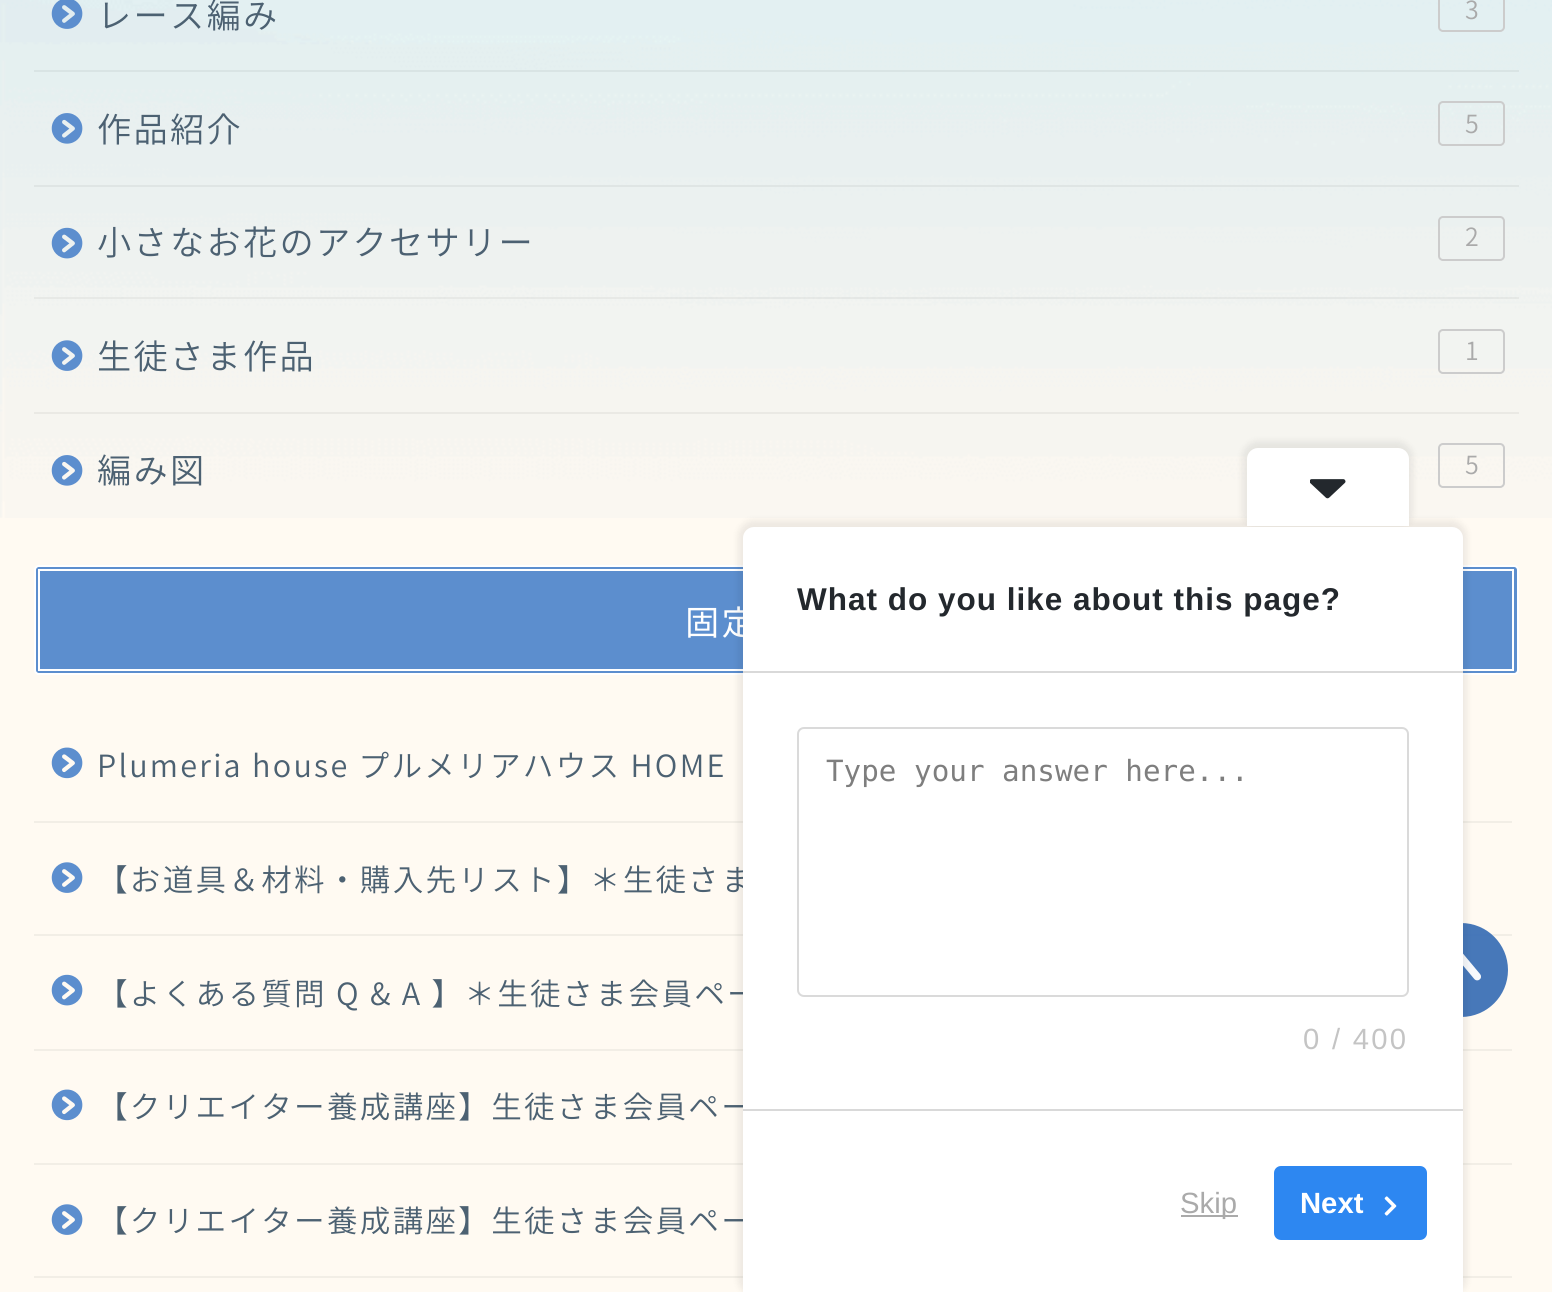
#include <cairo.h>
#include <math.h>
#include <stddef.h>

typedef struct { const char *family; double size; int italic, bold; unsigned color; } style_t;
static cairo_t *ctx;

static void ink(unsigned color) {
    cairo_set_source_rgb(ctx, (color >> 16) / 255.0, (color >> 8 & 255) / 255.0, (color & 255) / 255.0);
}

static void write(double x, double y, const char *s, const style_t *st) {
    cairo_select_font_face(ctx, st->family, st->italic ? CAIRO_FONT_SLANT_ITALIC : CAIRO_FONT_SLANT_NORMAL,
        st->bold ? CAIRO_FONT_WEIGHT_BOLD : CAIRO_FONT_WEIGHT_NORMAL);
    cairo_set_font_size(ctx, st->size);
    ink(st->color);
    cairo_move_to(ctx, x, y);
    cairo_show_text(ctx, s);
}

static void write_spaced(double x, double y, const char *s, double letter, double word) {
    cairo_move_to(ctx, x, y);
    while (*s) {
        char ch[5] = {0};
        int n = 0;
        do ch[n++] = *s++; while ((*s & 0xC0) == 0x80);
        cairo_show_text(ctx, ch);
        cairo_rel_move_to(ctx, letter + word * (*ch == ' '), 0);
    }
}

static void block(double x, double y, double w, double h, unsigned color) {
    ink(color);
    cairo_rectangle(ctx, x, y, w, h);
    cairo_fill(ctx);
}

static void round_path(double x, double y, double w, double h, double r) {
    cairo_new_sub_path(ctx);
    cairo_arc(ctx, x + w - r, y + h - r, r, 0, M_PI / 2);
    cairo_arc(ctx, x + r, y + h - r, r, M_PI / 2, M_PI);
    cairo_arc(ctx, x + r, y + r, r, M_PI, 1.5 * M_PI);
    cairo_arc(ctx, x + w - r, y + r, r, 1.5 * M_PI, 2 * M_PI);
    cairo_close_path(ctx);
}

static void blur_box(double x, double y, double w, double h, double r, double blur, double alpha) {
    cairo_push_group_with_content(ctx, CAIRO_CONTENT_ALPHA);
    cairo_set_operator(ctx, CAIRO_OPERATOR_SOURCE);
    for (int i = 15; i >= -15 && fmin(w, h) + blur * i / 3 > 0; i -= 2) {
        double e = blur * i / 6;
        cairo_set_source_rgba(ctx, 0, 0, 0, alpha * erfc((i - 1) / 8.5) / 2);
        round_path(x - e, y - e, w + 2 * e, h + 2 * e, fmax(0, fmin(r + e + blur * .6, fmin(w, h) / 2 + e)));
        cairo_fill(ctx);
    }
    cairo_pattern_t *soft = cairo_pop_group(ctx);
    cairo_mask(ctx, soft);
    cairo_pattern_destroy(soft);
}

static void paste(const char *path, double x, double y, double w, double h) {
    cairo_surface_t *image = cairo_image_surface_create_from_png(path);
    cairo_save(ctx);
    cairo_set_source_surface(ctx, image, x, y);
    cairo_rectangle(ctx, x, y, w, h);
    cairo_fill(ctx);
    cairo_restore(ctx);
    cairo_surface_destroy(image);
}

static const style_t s1 = {"Noto Sans JP Light", 25, 0, 0, 0xaaaaaa};
static const style_t s2 = {"DejaVu Sans Mono", 29.25, 0, 0, 0x7e7e7e};
static const style_t s3 = {"Liberation Sans", 29.25, 0, 0, 0xaaaaaa};
static const style_t s4 = {"Liberation Sans", 29.25, 0, 1, 0xffffff};

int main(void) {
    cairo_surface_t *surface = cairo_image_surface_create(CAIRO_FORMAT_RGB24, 1552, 1292);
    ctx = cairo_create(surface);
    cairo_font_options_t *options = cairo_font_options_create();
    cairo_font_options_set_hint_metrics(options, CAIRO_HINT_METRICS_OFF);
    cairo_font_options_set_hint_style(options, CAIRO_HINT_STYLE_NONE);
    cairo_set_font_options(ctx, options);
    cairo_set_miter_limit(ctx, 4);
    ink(0xfffaf2);
    cairo_paint(ctx);
    paste("pic1.png", 0, 0, 1552, 518);
    block(34, 70, 1485, 2, 0xd9e4e4);
    paste("pic2.png", 51, 0, 32, 29);
    cairo_select_font_face(ctx, "Noto Sans JP Light", CAIRO_FONT_SLANT_NORMAL, CAIRO_FONT_WEIGHT_NORMAL);
    cairo_set_font_size(ctx, 34.25);
    ink(0x4c6172);
    write_spaced(97, 28, "レース編み", 2.25, 0);
    round_path(1439, -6, 65, 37, 4);
    ink(0xcccccc);
    cairo_stroke(ctx);
    write(1465, 19, "3", &s1);
    block(34, 185, 1485, 2, 0xdfe5e4);
    paste("pic3.png", 51, 113, 32, 31);
    cairo_set_font_size(ctx, 34.25);
    ink(0x4c6172);
    write_spaced(97, 142, "作品紹介", 2.25, 0);
    round_path(1439, 102, 65, 43, 4);
    ink(0xcccccc);
    cairo_stroke(ctx);
    write(1465, 133, "5", &s1);
    cairo_set_source_rgba(ctx, 0, 0, 0, 0.05);
    cairo_rectangle(ctx, 34, 297, 1485, 2);
    cairo_fill(ctx);
    paste("pic4.png", 51, 227, 32, 32);
    cairo_set_font_size(ctx, 34.25);
    ink(0x4c6172);
    write_spaced(97, 255, "小さなお花のアクセサリー", 2.25, 0);
    round_path(1439, 217, 65, 43, 4);
    ink(0xcccccc);
    cairo_stroke(ctx);
    write(1465, 246, "2", &s1);
    block(34, 412, 1485, 2, 0xeae9e4);
    paste("pic5.png", 51, 340, 32, 31);
    cairo_set_font_size(ctx, 34.25);
    ink(0x4c6172);
    write_spaced(97, 369, "生徒さま作品", 2.25, 0);
    round_path(1439, 330, 65, 43, 4);
    ink(0xcccccc);
    cairo_stroke(ctx);
    write(1465, 360, "1", &s1);
    paste("pic6.png", 51, 455, 32, 31);
    cairo_set_font_size(ctx, 34.25);
    ink(0x4c6172);
    write_spaced(97, 483, "編み図", 2.25, 0);
    round_path(1439, 444, 65, 43, 4);
    ink(0xcccccc);
    cairo_stroke(ctx);
    write(1465, 474, "5", &s1);
    ink(0x5c8ece);
    round_path(35, 566, 1483, 108, 4);
    cairo_fill_preserve(ctx);
    ink(0xffffff);
    cairo_stroke(ctx);
    cairo_rectangle(ctx, 39, 570, 1474, 100);
    cairo_stroke(ctx);
    cairo_select_font_face(ctx, "Noto Sans JP", CAIRO_FONT_SLANT_NORMAL, CAIRO_FONT_WEIGHT_NORMAL);
    cairo_set_font_size(ctx, 34.25);
    write_spaced(685, 635, "固定", 2.25, 0);
    block(34, 821, 1478, 2, 0xf2eee6);
    paste("pic7.png", 51, 747, 32, 32);
    cairo_select_font_face(ctx, "Noto Sans JP Light", CAIRO_FONT_SLANT_NORMAL, CAIRO_FONT_WEIGHT_NORMAL);
    cairo_set_font_size(ctx, 30.6);
    ink(0x4c6172);
    write_spaced(97, 777, "Plumeria house プルメリアハウス HOME", 2.25, 0);
    block(34, 934, 1478, 2, 0xf2eee6);
    paste("pic8.png", 51, 862, 32, 31);
    ink(0x4c6172);
    write_spaced(97, 891, "【お道具＆材料・購入先リスト】＊生徒さま", 2.25, 0);
    block(34, 1049, 1478, 2, 0xf2eee6);
    paste("pic9.png", 51, 974, 32, 32);
    ink(0x4c6172);
    write_spaced(97, 1005, "【よくある質問 Q & A 】＊生徒さま会員ペー", 2.25, 0);
    block(34, 1163, 1478, 2, 0xf2eee6);
    paste("pic7.png", 51, 1089, 32, 32);
    ink(0x4c6172);
    write_spaced(97, 1118, "【クリエイター養成講座】生徒さま会員ペー", 2.25, 0);
    block(34, 1276, 1478, 2, 0xf2eee6);
    paste("pic8.png", 51, 1204, 32, 31);
    ink(0x4c6172);
    write_spaced(97, 1232, "【クリエイター養成講座】生徒さま会員ペー", 2.25, 0);
    cairo_set_source_rgba(ctx, 0.251, 0.451, 0.718, 0.96);
    round_path(1413, 923, 95, 94, 47);
    cairo_fill(ctx);
    paste("pic12.png", 1463, 953, 18, 28);
    ink(0x000000);
    blur_box(738, 520, 729, 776, 16, 3.5, 0.07);
    ink(0xffffff);
    cairo_new_path(ctx);
    cairo_move_to(ctx, 754, 527);
    cairo_line_to(ctx, 1452, 527);
    cairo_curve_to(ctx, 1458, 527, 1463, 532, 1463, 538);
    cairo_line_to(ctx, 1463, 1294);
    cairo_line_to(ctx, 743, 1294);
    cairo_line_to(ctx, 743, 538);
    cairo_curve_to(ctx, 743, 532, 748, 527, 754, 527);
    cairo_close_path(ctx);
    cairo_fill(ctx);
    cairo_save(ctx);
    cairo_new_path(ctx);
    cairo_move_to(ctx, 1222, 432);
    cairo_line_to(ctx, 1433, 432);
    cairo_line_to(ctx, 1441, 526.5);
    cairo_line_to(ctx, 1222, 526.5);
    cairo_close_path(ctx);
    cairo_clip(ctx);
    ink(0x000000);
    blur_box(1242, 441, 171, 88, 16, 3.5, 0.07);
    cairo_restore(ctx);
    cairo_new_path(ctx);
    cairo_move_to(ctx, 1258, 448);
    cairo_line_to(ctx, 1398, 448);
    cairo_curve_to(ctx, 1404, 448, 1409, 453, 1409, 459);
    cairo_line_to(ctx, 1409, 526);
    cairo_line_to(ctx, 1247, 526);
    cairo_line_to(ctx, 1247, 459);
    cairo_curve_to(ctx, 1247, 453, 1252, 448, 1258, 448);
    cairo_close_path(ctx);
    cairo_fill(ctx);
    paste("pic10.png", 1310, 479, 36, 20);
    cairo_select_font_face(ctx, "Liberation Sans", CAIRO_FONT_SLANT_NORMAL, CAIRO_FONT_WEIGHT_BOLD);
    cairo_set_font_size(ctx, 31.5);
    ink(0x23282d);
    write_spaced(797, 610, "What do you like about this page?", 1, 0);
    block(743, 671, 720, 2, 0xd9d9d9);
    block(743, 1109, 720, 2, 0xd9d9d9);
    round_path(798, 728, 610, 268, 6);
    ink(0xdadada);
    cairo_stroke(ctx);
    write(826, 781, "Type your answer here...", &s2);
    cairo_select_font_face(ctx, "Liberation Sans", CAIRO_FONT_SLANT_NORMAL, CAIRO_FONT_WEIGHT_NORMAL);
    ink(0xc4c4c4);
    write_spaced(1303, 1049, "0 / 400", 2.25, 0);
    block(1181, 1215, 57, 2, 0xaaaaaa);
    write(1180, 1213, "Skip", &s3);
    ink(0x2d87f1);
    round_path(1274, 1166, 153, 74, 7);
    cairo_fill(ctx);
    write(1300, 1213, "Next", &s4);
    paste("pic11.png", 1384, 1196, 13, 20);
    cairo_surface_write_to_png(surface, "screenshot.png");
    cairo_font_options_destroy(options);
    cairo_destroy(ctx);
    cairo_surface_destroy(surface);
    return 0;
}
